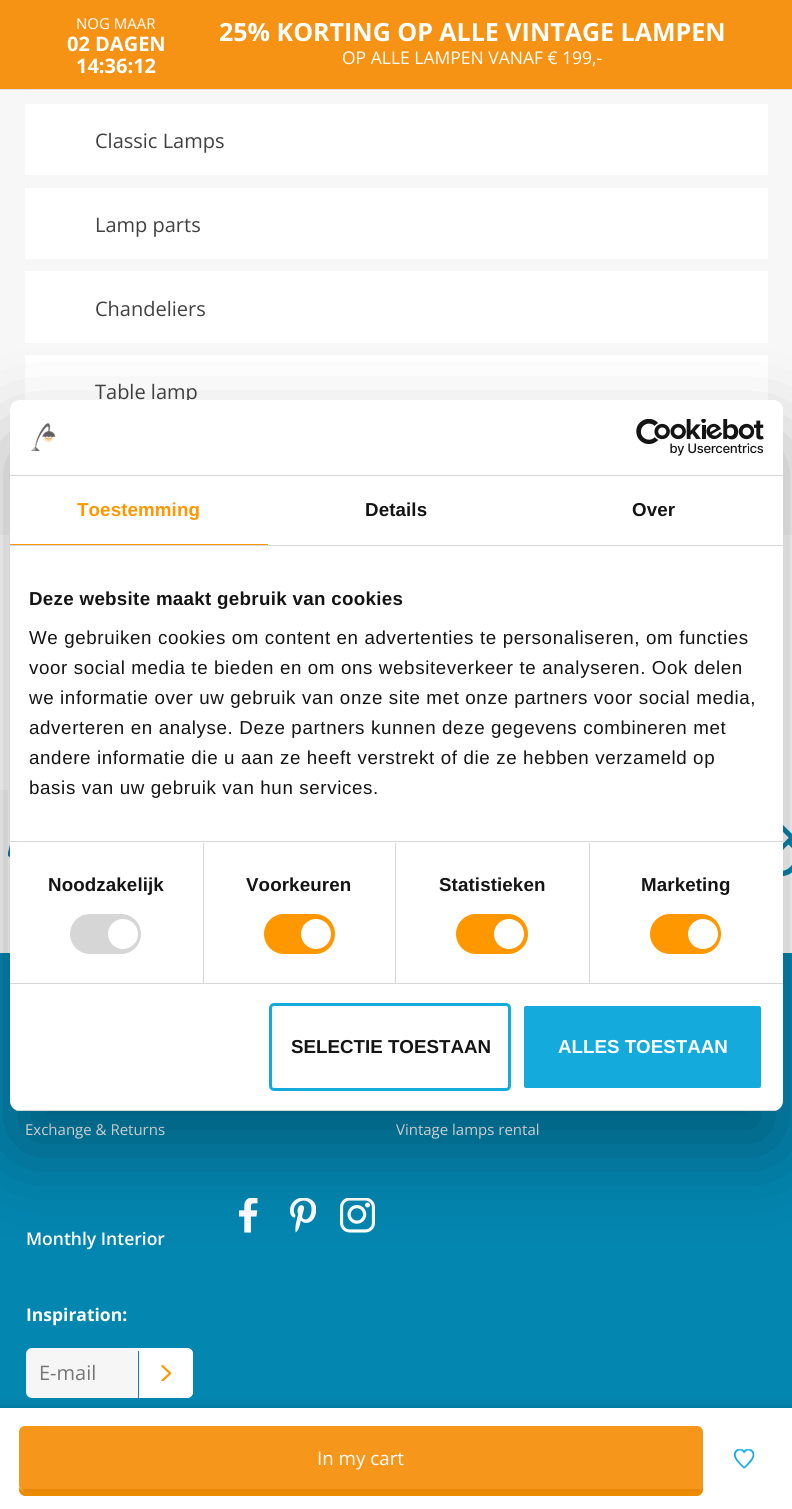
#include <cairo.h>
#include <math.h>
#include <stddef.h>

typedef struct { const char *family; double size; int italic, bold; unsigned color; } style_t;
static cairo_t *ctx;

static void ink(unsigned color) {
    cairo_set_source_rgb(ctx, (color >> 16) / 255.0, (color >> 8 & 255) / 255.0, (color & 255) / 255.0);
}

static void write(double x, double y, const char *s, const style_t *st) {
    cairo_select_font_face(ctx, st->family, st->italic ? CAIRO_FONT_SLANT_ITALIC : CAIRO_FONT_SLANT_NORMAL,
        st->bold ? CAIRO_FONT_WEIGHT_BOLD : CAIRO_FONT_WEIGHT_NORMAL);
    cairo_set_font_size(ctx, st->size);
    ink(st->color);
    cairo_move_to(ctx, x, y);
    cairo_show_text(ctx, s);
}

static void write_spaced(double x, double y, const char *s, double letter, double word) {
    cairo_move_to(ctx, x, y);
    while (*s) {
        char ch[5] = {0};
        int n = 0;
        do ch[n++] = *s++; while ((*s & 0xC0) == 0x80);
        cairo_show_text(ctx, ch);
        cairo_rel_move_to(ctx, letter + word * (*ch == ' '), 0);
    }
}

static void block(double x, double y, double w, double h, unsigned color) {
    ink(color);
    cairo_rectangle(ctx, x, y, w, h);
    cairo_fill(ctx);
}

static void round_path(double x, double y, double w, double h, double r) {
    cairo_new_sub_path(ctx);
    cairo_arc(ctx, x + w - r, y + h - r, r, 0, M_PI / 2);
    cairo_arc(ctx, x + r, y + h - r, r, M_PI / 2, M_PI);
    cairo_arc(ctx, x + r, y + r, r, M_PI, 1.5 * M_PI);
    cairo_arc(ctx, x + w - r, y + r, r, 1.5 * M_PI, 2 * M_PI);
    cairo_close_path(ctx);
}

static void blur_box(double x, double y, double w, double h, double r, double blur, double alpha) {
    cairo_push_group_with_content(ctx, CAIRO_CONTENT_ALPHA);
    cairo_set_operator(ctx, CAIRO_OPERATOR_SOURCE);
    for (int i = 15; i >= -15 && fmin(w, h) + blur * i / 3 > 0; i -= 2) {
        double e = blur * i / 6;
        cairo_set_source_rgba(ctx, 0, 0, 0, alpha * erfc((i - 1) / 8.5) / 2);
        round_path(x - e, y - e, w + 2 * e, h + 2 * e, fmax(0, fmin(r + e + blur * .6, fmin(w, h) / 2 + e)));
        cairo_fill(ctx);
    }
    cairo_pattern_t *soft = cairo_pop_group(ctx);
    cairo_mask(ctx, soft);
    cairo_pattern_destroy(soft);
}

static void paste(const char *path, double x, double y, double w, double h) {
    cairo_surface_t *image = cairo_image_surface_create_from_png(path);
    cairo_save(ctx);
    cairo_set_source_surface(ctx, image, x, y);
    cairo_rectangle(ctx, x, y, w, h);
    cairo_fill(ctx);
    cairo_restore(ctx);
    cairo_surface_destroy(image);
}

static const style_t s1 = {"Open Sans", 15, 0, 0, 0xffffff};
static const style_t s2 = {"Open Sans", 20, 0, 1, 0xffffff};
static const style_t s3 = {"Open Sans", 25, 0, 1, 0xffffff};
static const style_t s4 = {"Open Sans", 17.5, 0, 0, 0xffffff};
static const style_t s5 = {"Open Sans", 20, 0, 0, 0x414141};
static const style_t s6 = {"Open Sans SemiBold", 17.5, 0, 0, 0xffffff};
static const style_t s7 = {"Open Sans", 17.5, 0, 1, 0xffffff};
static const style_t s8 = {"Open Sans", 20, 0, 0, 0x757575};
static const style_t s9 = {"Liberation Sans", 18.75, 0, 1, 0x141414};
static const style_t s10 = {"Liberation Sans", 18.75, 0, 1, 0xffffff};
static const style_t s11 = {"Open Sans", 18.75, 0, 0, 0xffffff};

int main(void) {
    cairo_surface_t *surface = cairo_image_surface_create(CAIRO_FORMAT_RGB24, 792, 1509);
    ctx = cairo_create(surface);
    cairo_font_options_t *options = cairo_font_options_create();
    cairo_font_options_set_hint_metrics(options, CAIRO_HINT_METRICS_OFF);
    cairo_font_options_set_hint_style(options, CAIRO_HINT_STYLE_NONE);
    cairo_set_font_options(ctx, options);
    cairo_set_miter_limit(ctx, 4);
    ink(0xf7f7f7);
    cairo_paint(ctx);
    block(0, 0, 792, 89, 0xf69314);
    block(0, 89, 792, 1, 0xe1e1e1);
    write(76, 29, "NOG MAAR", &s1);
    write(67, 51, "02 DAGEN", &s2);
    write(76, 73, "14:36:12", &s2);
    write(219, 41, "25% KORTING OP ALLE VINTAGE LAMPEN", &s3);
    write(342, 64, "OP ALLE LAMPEN VANAF € 199,-", &s4);
    block(25, 90, 743, 1, 0xffffff);
    block(25, 104, 743, 71, 0xffffff);
    write(95, 148, "Classic Lamps", &s5);
    block(25, 188, 743, 71, 0xffffff);
    write(95, 232, "Lamp parts", &s5);
    block(25, 271, 743, 72, 0xffffff);
    write(95, 316, "Chandeliers", &s5);
    block(25, 355, 743, 45, 0xffffff);
    write(95, 399, "Table lamp", &s5);
    block(0, 535, 792, 255, 0xffffff);
    block(8, 790, 784, 163, 0xffffff);
    paste("pic1.png", 8, 825, 784, 52);
    block(0, 953, 792, 455, 0x0386b0);
    write(25, 1135, "Exchange & Returns", &s1);
    write(396, 1135, "Vintage lamps rental", &s1);
    paste("pic2.png", 239, 1198, 19, 35);
    paste("pic3.png", 290, 1198, 26, 35);
    paste("pic4.png", 340, 1198, 35, 35);
    write(26, 1245, "Monthly Interior", &s6);
    write(26, 1321, "Inspiration:", &s7);
    ink(0xf6f6f6);
    round_path(26, 1348, 167, 50, 6);
    cairo_fill(ctx);
    write(39, 1380, "E-mail", &s8);
    cairo_save(ctx);
    round_path(26, 1348, 167, 50, 6);
    cairo_clip(ctx);
    ink(0xffffff);
    round_path(138, 1348, 55, 52, 6);
    cairo_fill(ctx);
    cairo_restore(ctx);
    paste("pic5.png", 161, 1365, 10, 16);
    block(138, 1351, 1, 47, 0x0386b0);
    ink(0x000000);
    blur_box(10, 440, 773, 711, 10, 42.5, 0.3);
    ink(0xffffff);
    round_path(10, 400, 773, 711, 10);
    cairo_fill(ctx);
    block(10, 475, 773, 1, 0xd6d6d6);
    paste("pic6.png", 31, 423, 25, 28);
    paste("pic7.png", 636, 419, 128, 37);
    block(10, 545, 773, 1, 0xd6d6d6);
    block(10, 544, 258, 1, 0xff9700);
    cairo_select_font_face(ctx, "Liberation Sans", CAIRO_FONT_SLANT_NORMAL, CAIRO_FONT_WEIGHT_BOLD);
    cairo_set_font_size(ctx, 18.75);
    write_spaced(77, 516, "Toestemming", 0.1, 0);
    ink(0x141414);
    write_spaced(365, 516, "Details", 0.1, 0);
    write_spaced(632, 516, "Over", 0.1, 0);
    block(10, 841, 773, 1, 0xd6d6d6);
    ink(0x141414);
    write_spaced(29, 605, "Deze website maakt gebruik van cookies", 0.3, 0);
    cairo_select_font_face(ctx, "Liberation Sans", CAIRO_FONT_SLANT_NORMAL, CAIRO_FONT_WEIGHT_NORMAL);
    write_spaced(29, 644, "We gebruiken cookies om content en advertenties te personaliseren, om functies", 0.62, 0);
    write_spaced(29, 674, "voor social media te bieden en om ons websiteverkeer te analyseren. Ook delen", 0.62, 0);
    write_spaced(29, 704, "we informatie over uw gebruik van onze site met onze partners voor social media,", 0.62, 0);
    write_spaced(29, 734, "adverteren en analyse. Deze partners kunnen deze gegevens combineren met", 0.62, 0);
    write_spaced(29, 764, "andere informatie die u aan ze heeft verstrekt of die ze hebben verzameld op", 0.62, 0);
    write_spaced(29, 794, "basis van uw gebruik van hun services.", 0.62, 0);
    block(10, 983, 773, 1, 0xd6d6d6);
    block(203, 843, 1, 140, 0xd6d6d6);
    cairo_select_font_face(ctx, "Liberation Sans", CAIRO_FONT_SLANT_NORMAL, CAIRO_FONT_WEIGHT_BOLD);
    ink(0x141414);
    write_spaced(48, 891, "Noodzakelijk", 0.1, 0);
    ink(0xd6d6d6);
    round_path(70, 914, 71, 40, 20);
    cairo_fill(ctx);
    ink(0xffffff);
    cairo_arc(ctx, 123, 934, 15, 0, 2 * M_PI);
    cairo_fill(ctx);
    block(395, 843, 1, 140, 0xd6d6d6);
    ink(0x141414);
    write_spaced(246, 891, "Voorkeuren", 0.1, 0);
    ink(0xff9700);
    round_path(264, 914, 71, 40, 20);
    cairo_fill(ctx);
    ink(0xffffff);
    cairo_arc(ctx, 316, 934, 15, 0, 2 * M_PI);
    cairo_fill(ctx);
    block(589, 843, 1, 140, 0xd6d6d6);
    ink(0x141414);
    write_spaced(439, 891, "Statistieken", 0.1, 0);
    ink(0xff9700);
    round_path(456, 914, 72, 40, 20);
    cairo_fill(ctx);
    ink(0xffffff);
    cairo_arc(ctx, 509, 934, 15, 0, 2 * M_PI);
    cairo_fill(ctx);
    ink(0x141414);
    write_spaced(641, 891, "Marketing", 0.1, 0);
    ink(0xff9700);
    round_path(650, 914, 71, 40, 20);
    cairo_fill(ctx);
    ink(0xffffff);
    cairo_arc(ctx, 703, 934, 15, 0, 2 * M_PI);
    cairo_fill(ctx);
    cairo_save(ctx);
    round_path(10, 400, 773, 711, 10);
    cairo_clip(ctx);
    block(10, 1110, 773, 1, 0xd6d6d6);
    cairo_restore(ctx);
    round_path(270.5, 1004.5, 239, 85, 3.5);
    ink(0x14abdc);
    cairo_set_line_width(ctx, 3);
    cairo_stroke(ctx);
    write(291, 1053, "SELECTIE TOESTAAN", &s9);
    ink(0x14abdc);
    round_path(522.5, 1004.5, 240, 85, 3.5);
    cairo_fill_preserve(ctx);
    ink(0xffffff);
    cairo_stroke(ctx);
    write(558, 1053, "ALLES TOESTAAN", &s10);
    ink(0x000000);
    blur_box(0, 1408, 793, 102, 0, 5, 0.2);
    block(0, 1408, 792, 101, 0xffffff);
    ink(0xec8c00);
    cairo_new_path(ctx);
    cairo_move_to(ctx, 19, 1487);
    cairo_line_to(ctx, 19, 1490);
    cairo_curve_to(ctx, 19, 1493, 22, 1496, 25, 1496);
    cairo_line_to(ctx, 697, 1496);
    cairo_curve_to(ctx, 700, 1496, 703, 1493, 703, 1490);
    cairo_line_to(ctx, 703, 1437);
    cairo_line_to(ctx, 702, 1435);
    cairo_line_to(ctx, 702, 1485);
    cairo_curve_to(ctx, 702, 1488, 700, 1491, 696, 1491);
    cairo_line_to(ctx, 25, 1491);
    cairo_curve_to(ctx, 22, 1491, 20, 1489, 19, 1487);
    cairo_close_path(ctx);
    cairo_fill(ctx);
    ink(0xf6961b);
    round_path(19, 1426, 684, 65, 6);
    cairo_fill(ctx);
    block(23, 1489, 677, 3, 0xeb8707);
    write(317, 1465, "In my cart", &s11);
    paste("pic8.png", 734, 1449, 21, 20);
    cairo_surface_write_to_png(surface, "screenshot.png");
    cairo_font_options_destroy(options);
    cairo_destroy(ctx);
    cairo_surface_destroy(surface);
    return 0;
}
